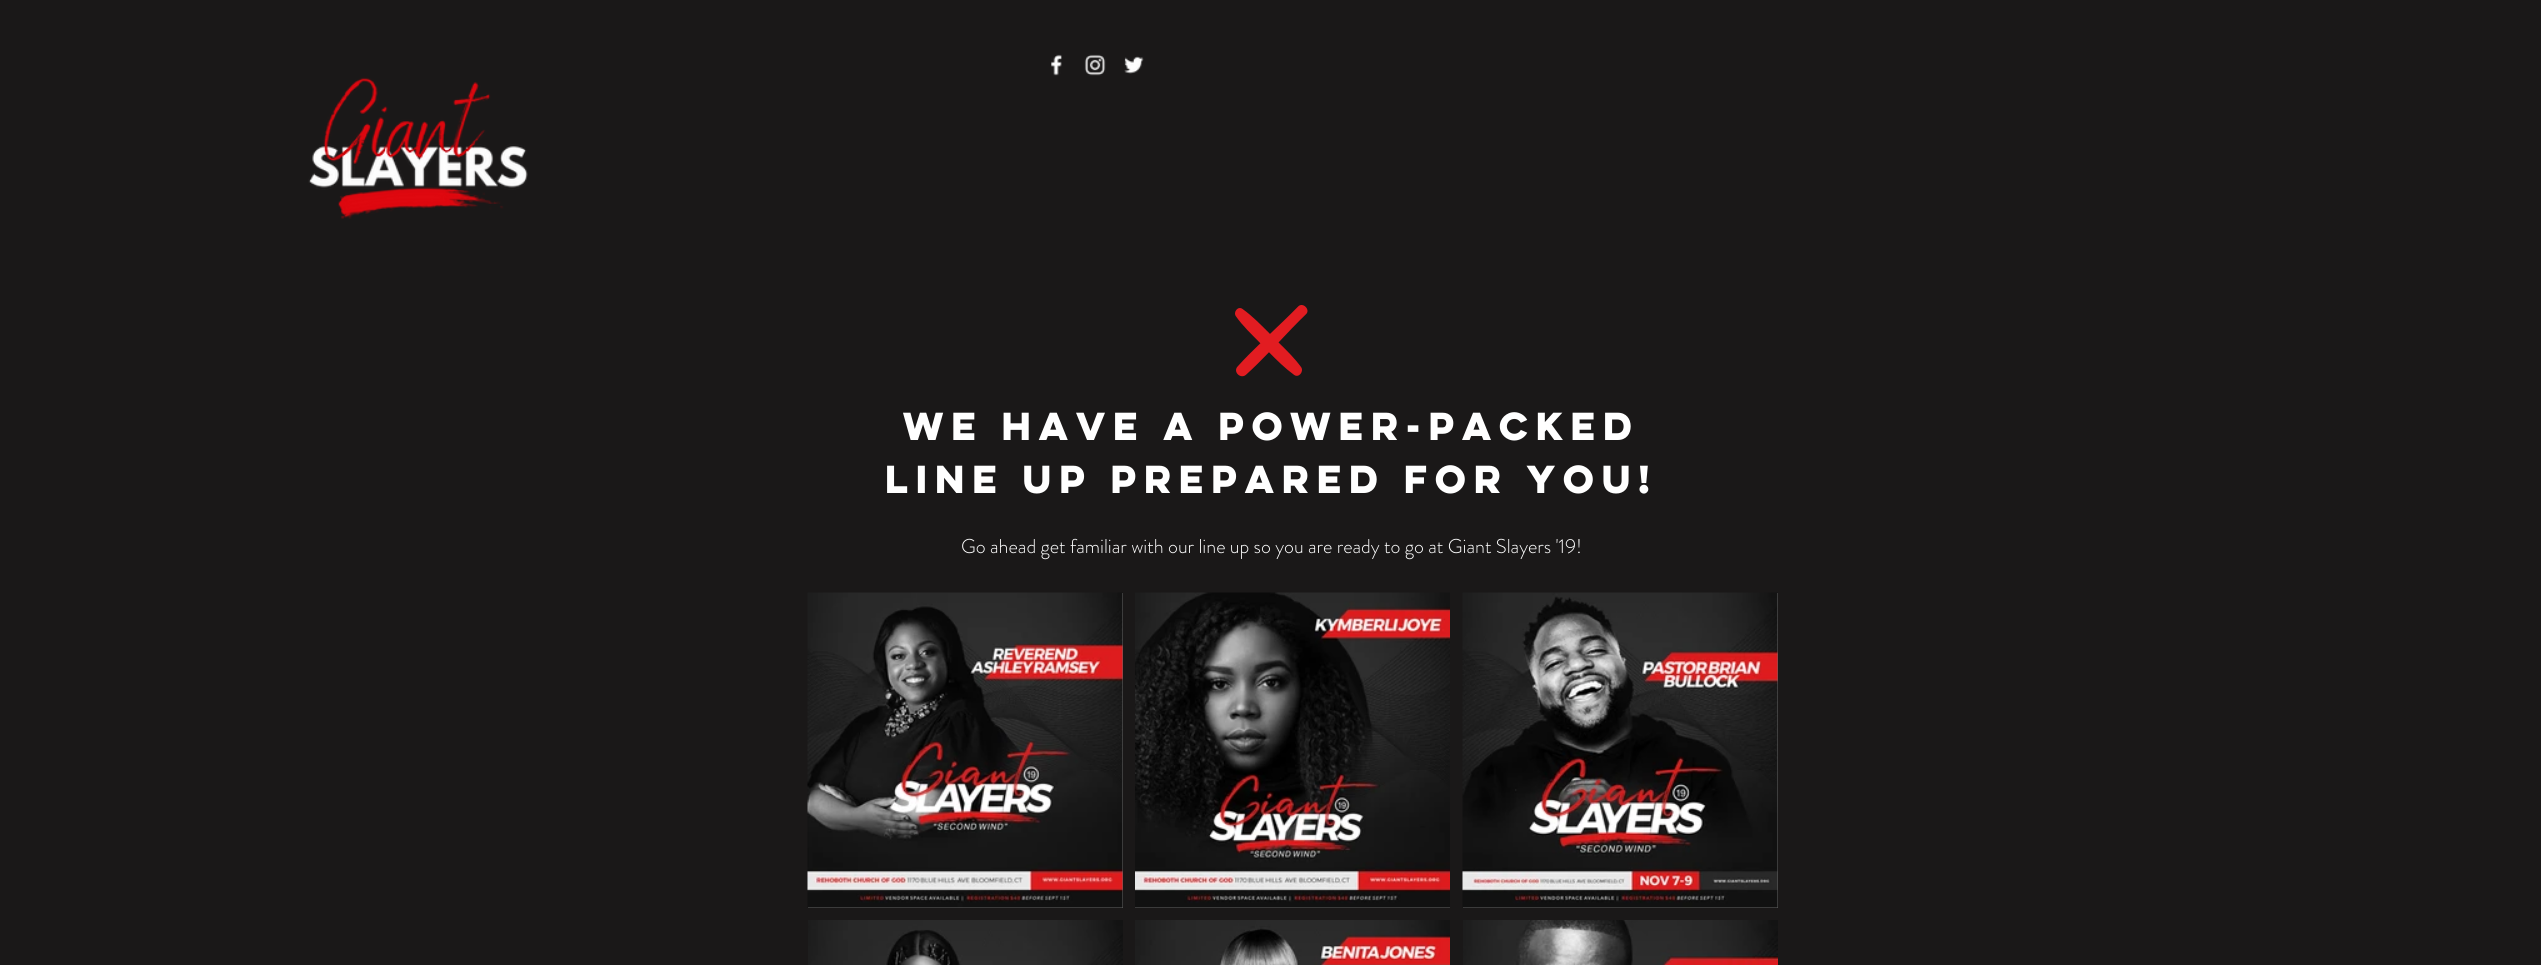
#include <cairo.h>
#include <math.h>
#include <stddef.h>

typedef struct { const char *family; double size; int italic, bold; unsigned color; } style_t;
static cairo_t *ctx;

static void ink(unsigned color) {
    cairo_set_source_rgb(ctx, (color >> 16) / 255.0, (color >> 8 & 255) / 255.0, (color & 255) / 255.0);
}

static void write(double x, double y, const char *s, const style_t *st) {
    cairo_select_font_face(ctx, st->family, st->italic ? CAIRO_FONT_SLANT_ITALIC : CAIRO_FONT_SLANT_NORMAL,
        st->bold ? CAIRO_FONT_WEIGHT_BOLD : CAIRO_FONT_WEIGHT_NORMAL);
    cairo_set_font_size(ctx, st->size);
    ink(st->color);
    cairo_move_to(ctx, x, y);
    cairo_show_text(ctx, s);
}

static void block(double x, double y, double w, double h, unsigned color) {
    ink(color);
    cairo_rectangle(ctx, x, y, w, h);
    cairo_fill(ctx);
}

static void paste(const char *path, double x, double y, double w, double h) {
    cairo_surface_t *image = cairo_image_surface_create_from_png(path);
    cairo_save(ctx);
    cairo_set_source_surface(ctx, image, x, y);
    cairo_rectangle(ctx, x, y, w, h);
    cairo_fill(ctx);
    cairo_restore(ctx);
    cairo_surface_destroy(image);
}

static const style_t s1 = {"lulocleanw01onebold", 35, 0, 1, 0xffffff};
static const style_t s2 = {"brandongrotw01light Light", 20, 0, 0, 0xffffff};

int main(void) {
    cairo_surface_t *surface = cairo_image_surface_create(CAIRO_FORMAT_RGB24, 2541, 965);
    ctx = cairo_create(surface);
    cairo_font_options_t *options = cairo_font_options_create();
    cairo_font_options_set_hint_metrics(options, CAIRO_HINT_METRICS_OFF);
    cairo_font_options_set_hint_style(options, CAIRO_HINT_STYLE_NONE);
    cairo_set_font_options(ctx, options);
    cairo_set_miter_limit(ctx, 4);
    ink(0x1a1818);
    cairo_paint(ctx);
    paste("pic1.png", 1051, 54, 11, 22);
    paste("pic2.png", 1084, 54, 22, 22);
    paste("pic3.png", 1124, 56, 20, 18);
    paste("pic4.png", 308, 77, 220, 142);
    paste("pic5.png", 1235, 305, 73, 72);
    write(903, 440, "We have A power-packed", &s1);
    write(885, 493, "Line up Prepared for you!", &s1);
    write(961, 553, "Go ahead get familiar with our line up so you are ready to go at Giant Slayers '19!", &s2);
    block(808, 593, 315, 315, 0x666666);
    paste("pic6.png", 807, 592, 316, 316);
    block(1135, 907, 315, 1, 0x666666);
    paste("pic7.png", 1135, 592, 315, 316);
    block(1463, 593, 315, 315, 0x666666);
    paste("pic8.png", 1462, 592, 316, 316);
    paste("pic9.png", 808, 920, 315, 45);
    paste("pic10.png", 1135, 920, 315, 45);
    paste("pic11.png", 1463, 920, 315, 45);
    cairo_surface_write_to_png(surface, "screenshot.png");
    cairo_font_options_destroy(options);
    cairo_destroy(ctx);
    cairo_surface_destroy(surface);
    return 0;
}
